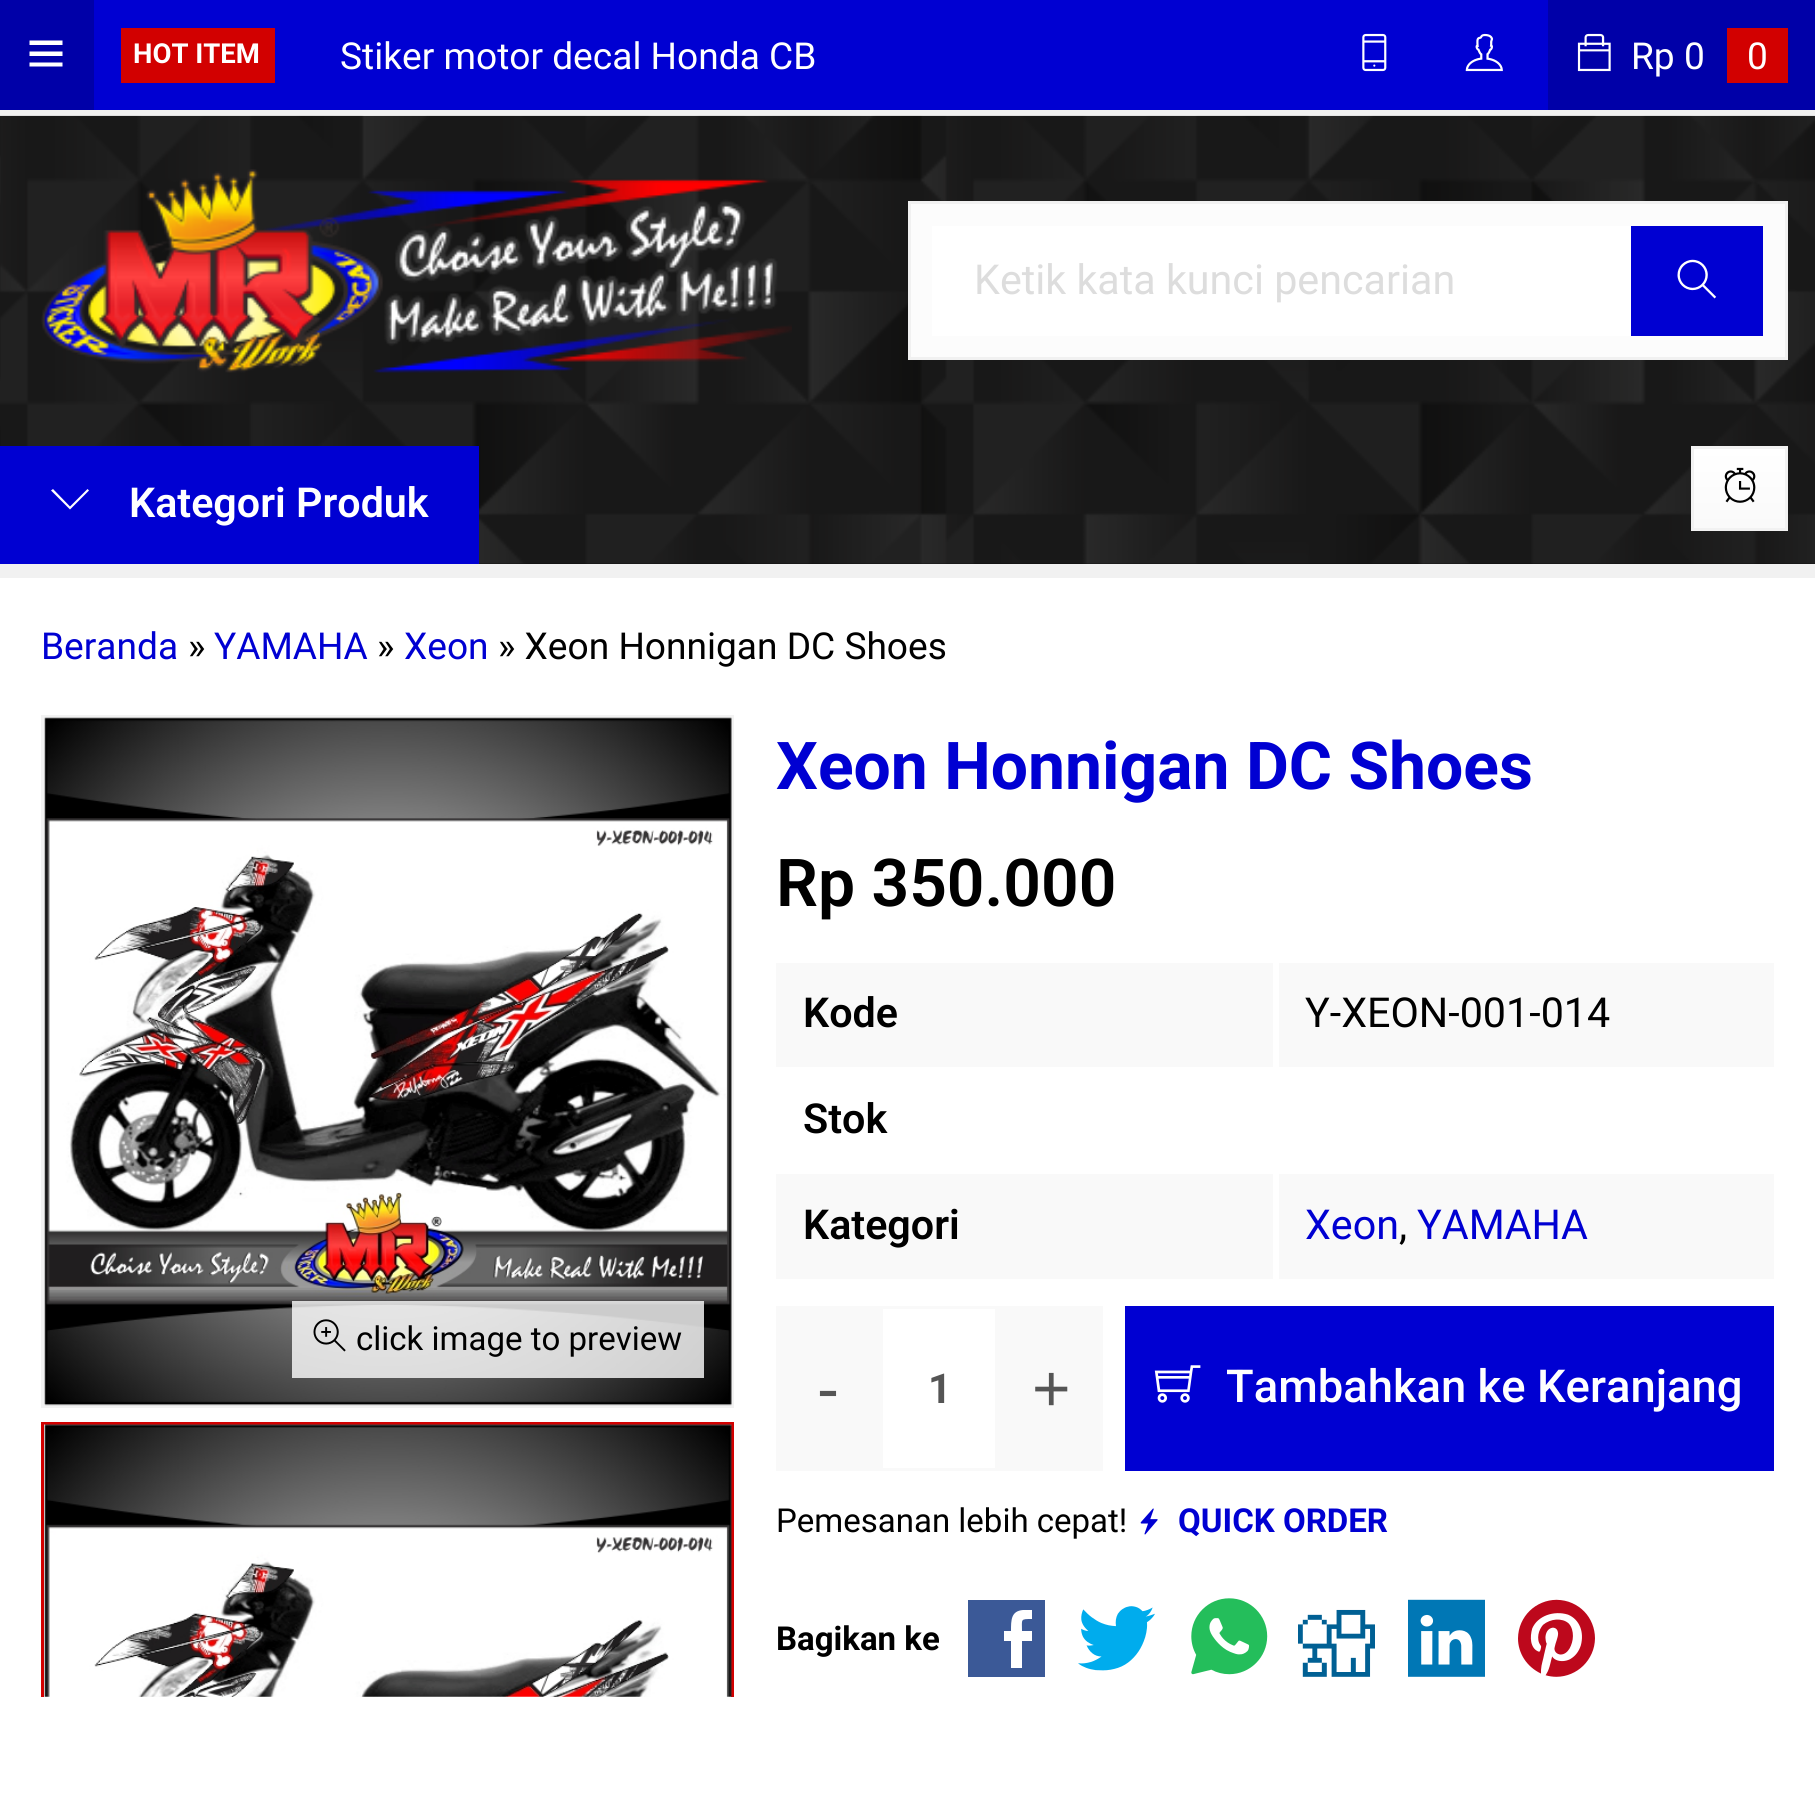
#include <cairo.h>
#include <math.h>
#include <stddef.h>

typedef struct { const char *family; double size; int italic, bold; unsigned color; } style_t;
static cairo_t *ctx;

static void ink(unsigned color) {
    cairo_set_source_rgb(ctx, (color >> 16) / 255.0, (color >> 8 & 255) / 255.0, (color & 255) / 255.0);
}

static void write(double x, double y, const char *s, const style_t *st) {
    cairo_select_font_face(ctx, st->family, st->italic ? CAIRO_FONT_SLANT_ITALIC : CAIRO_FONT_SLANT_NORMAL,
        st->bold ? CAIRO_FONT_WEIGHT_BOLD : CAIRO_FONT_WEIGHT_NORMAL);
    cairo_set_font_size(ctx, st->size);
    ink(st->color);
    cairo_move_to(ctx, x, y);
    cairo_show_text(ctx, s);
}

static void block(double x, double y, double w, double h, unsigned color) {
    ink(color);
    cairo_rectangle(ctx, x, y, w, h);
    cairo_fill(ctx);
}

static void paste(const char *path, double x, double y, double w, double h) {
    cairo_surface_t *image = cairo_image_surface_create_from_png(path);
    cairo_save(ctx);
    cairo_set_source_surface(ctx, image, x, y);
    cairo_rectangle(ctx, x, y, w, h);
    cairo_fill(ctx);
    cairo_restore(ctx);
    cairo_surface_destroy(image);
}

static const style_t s1 = {"Roboto", 27.5, 0, 1, 0xffffff};
static const style_t s2 = {"Roboto", 37.1, 0, 0, 0xffffff};
static const style_t s3 = {"Roboto", 41.25, 0, 0, 0xdddddd};
static const style_t s4 = {"Roboto SemiBold", 41.25, 0, 0, 0xffffff};
static const style_t s5 = {"Roboto", 37.1, 0, 0, 0x0000d2};
static const style_t s6 = {"Roboto", 37.1, 0, 0, 0x000000};
static const style_t s7 = {"Roboto", 33, 0, 0, 0x000000};
static const style_t s8 = {"Roboto", 66, 0, 1, 0x0000d2};
static const style_t s9 = {"Roboto SemiBold", 66, 0, 0, 0x000000};
static const style_t s10 = {"Roboto SemiBold", 41.25, 0, 0, 0x000000};
static const style_t s11 = {"Roboto", 41.25, 0, 0, 0x000000};
static const style_t s12 = {"Roboto", 41.25, 0, 0, 0x0000d2};
static const style_t s13 = {"Liberation Sans", 66, 0, 0, 0x555555};
static const style_t s14 = {"Roboto", 41.25, 0, 1, 0x555555};
static const style_t s15 = {"Roboto Medium", 45.4, 0, 0, 0xffffff};
static const style_t s16 = {"Roboto", 33, 0, 1, 0x0000d2};
static const style_t s17 = {"Roboto", 33, 0, 1, 0x000000};

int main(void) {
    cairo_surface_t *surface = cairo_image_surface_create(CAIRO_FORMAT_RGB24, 1815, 1807);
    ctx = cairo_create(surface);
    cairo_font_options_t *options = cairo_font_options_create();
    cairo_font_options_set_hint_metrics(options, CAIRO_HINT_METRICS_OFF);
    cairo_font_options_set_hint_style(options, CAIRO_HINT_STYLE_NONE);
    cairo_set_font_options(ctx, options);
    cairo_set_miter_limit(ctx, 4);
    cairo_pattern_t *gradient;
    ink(0xf1f1f1);
    cairo_paint(ctx);
    block(94, 0, 1454, 110, 0x0000d2);
    block(0, 0, 94, 110, 0x0000a8);
    ink(0xffffff);
    cairo_new_path(ctx);
    cairo_move_to(ctx, 62.5, 40.5);
    cairo_line_to(ctx, 62.5, 45);
    cairo_line_to(ctx, 29.5, 45);
    cairo_line_to(ctx, 29.5, 40.5);
    cairo_close_path(ctx);
    cairo_move_to(ctx, 29.5, 56);
    cairo_line_to(ctx, 62.5, 56);
    cairo_line_to(ctx, 62.5, 51.5);
    cairo_line_to(ctx, 29.5, 51.5);
    cairo_close_path(ctx);
    cairo_move_to(ctx, 29.5, 66.5);
    cairo_line_to(ctx, 62.5, 66.5);
    cairo_line_to(ctx, 62.5, 62.5);
    cairo_line_to(ctx, 29.5, 62.5);
    cairo_close_path(ctx);
    cairo_fill(ctx);
    block(121, 28, 154, 55, 0xd20000);
    write(133, 63, "HOT ITEM", &s1);
    write(340, 69, "Stiker motor decal Honda CB", &s2);
    paste("pic1.png", 1362, 33, 25, 39);
    paste("pic2.png", 1465, 33, 38, 39);
    block(1548, 0, 267, 110, 0x0000a8);
    paste("pic3.png", 1577, 33, 34, 39);
    write(1631, 69, "Rp 0", &s2);
    block(1727, 28, 61, 55, 0xd20000);
    write(1747, 69, "0", &s2);
    block(0, 116, 1815, 448, 0x020202);
    paste("pic4.png", 0, 115, 1815, 449);
    paste("pic5.png", 41, 169, 751, 204);
    ink(0xfcfcfc);
    cairo_rectangle(ctx, 909.5, 202.5, 877, 156);
    cairo_fill_preserve(ctx);
    ink(0xf1f1f1);
    cairo_set_line_width(ctx, 3);
    cairo_stroke(ctx);
    block(932, 226, 699, 110, 0xffffff);
    write(974, 294, "Ketik kata kunci pencarian", &s3);
    block(1631, 226, 132, 110, 0x0000d2);
    paste("pic6.png", 1677, 259, 40, 40);
    block(0, 446, 479, 118, 0x0000d2);
    ink(0xffffff);
    cairo_new_path(ctx);
    cairo_move_to(ctx, 89, 490.5);
    cairo_line_to(ctx, 70, 509.5);
    cairo_line_to(ctx, 51, 490.5);
    cairo_line_to(ctx, 53, 489);
    cairo_line_to(ctx, 70, 506.5);
    cairo_line_to(ctx, 87.5, 489);
    cairo_close_path(ctx);
    cairo_fill(ctx);
    write(129, 517, "Kategori Produk", &s4);
    gradient = cairo_pattern_create_linear(1739, 528, 1739, 448);
    cairo_pattern_add_color_stop_rgba(gradient, 0, 0.98, 0.98, 0.98, 1);
    cairo_pattern_add_color_stop_rgba(gradient, 1, 1, 1, 1, 1);
    cairo_set_source(ctx, gradient);
    cairo_pattern_destroy(gradient);
    cairo_rectangle(ctx, 1694, 449, 91, 79);
    cairo_fill(ctx);
    cairo_rectangle(ctx, 1692.5, 447.5, 94, 82);
    ink(0xf2f2f2);
    cairo_stroke(ctx);
    paste("pic7.png", 1724, 467, 32, 36);
    block(0, 578, 1815, 1229, 0xffffff);
    write(41, 659, "Beranda", &s5);
    write(188, 659, "»", &s6);
    write(214, 659, "YAMAHA", &s5);
    write(377, 659, "»", &s6);
    write(404, 659, "Xeon", &s5);
    write(498, 659, "» Xeon Honnigan DC Shoes", &s6);
    cairo_rectangle(ctx, 42.5, 716.5, 690, 690);
    ink(0xf2f2f2);
    cairo_stroke(ctx);
    paste("pic8.png", 44, 717, 688, 689);
    cairo_set_source_rgba(ctx, 1, 1, 1, 0.8);
    cairo_rectangle(ctx, 292, 1301, 412, 77);
    cairo_fill(ctx);
    paste("pic9.png", 313, 1319, 33, 33);
    write(356, 1350, "click image to preview", &s7);
    cairo_save(ctx);
    cairo_rectangle(ctx, 41, 1422, 693, 275);
    cairo_clip(ctx);
    cairo_rectangle(ctx, 42.5, 1423.5, 690, 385);
    ink(0xd20000);
    cairo_stroke(ctx);
    cairo_restore(ctx);
    paste("pic10.png", 44, 1424, 688, 273);
    write(776, 789, "Xeon Honnigan DC Shoes", &s8);
    write(776, 906, "Rp 350.000", &s9);
    block(776, 963, 998, 104, 0xf9f9f9);
    write(803, 1027, "Kode", &s10);
    write(1305, 1027, "Y-XEON-001-014", &s11);
    block(1273, 960, 6, 110, 0xffffff);
    write(803, 1133, "Stok", &s10);
    block(776, 1174, 998, 105, 0xf9f9f9);
    block(1273, 1172, 6, 110, 0xffffff);
    write(803, 1239, "Kategori", &s10);
    write(1305, 1239, "Xeon", &s12);
    write(1399, 1239, ",", &s11);
    write(1417, 1239, "YAMAHA", &s12);
    block(776, 1306, 104, 165, 0xf9f9f9);
    write(817, 1411, "-", &s13);
    cairo_rectangle(ctx, 881.5, 1307.5, 115, 162);
    ink(0xf9f9f9);
    cairo_stroke(ctx);
    write(928, 1403, "1", &s14);
    block(998, 1306, 105, 165, 0xf9f9f9);
    write(1032, 1411, "+", &s13);
    block(1125, 1306, 649, 165, 0x0000d2);
    paste("pic11.png", 1154, 1365, 47, 38);
    write(1226, 1402, "Tambahkan ke Keranjang", &s15);
    write(776, 1532, "Pemesanan lebih cepat!", &s7);
    paste("pic12.png", 1140, 1508, 18, 27);
    write(1178, 1532, "QUICK ORDER", &s16);
    write(776, 1650, "Bagikan ke", &s17);
    ink(0x3b5997);
    cairo_new_path(ctx);
    cairo_move_to(ctx, 968, 1600);
    cairo_line_to(ctx, 968, 1677);
    cairo_line_to(ctx, 1045, 1677);
    cairo_line_to(ctx, 1045, 1600);
    cairo_close_path(ctx);
    cairo_move_to(ctx, 1023, 1610);
    cairo_line_to(ctx, 1032, 1610);
    cairo_line_to(ctx, 1032, 1619);
    cairo_curve_to(ctx, 1020, 1619, 1022, 1619, 1022, 1631);
    cairo_line_to(ctx, 1032, 1631);
    cairo_line_to(ctx, 1032, 1641);
    cairo_line_to(ctx, 1022, 1641);
    cairo_line_to(ctx, 1022, 1668);
    cairo_line_to(ctx, 1011, 1668);
    cairo_line_to(ctx, 1011, 1641);
    cairo_line_to(ctx, 1004, 1641);
    cairo_line_to(ctx, 1004, 1631);
    cairo_line_to(ctx, 1011, 1631);
    cairo_curve_to(ctx, 1011, 1620, 1011, 1611, 1023, 1610);
    cairo_close_path(ctx);
    cairo_fill(ctx);
    paste("pic13.png", 1078, 1606, 77, 65);
    paste("pic14.png", 1191, 1598, 77, 77);
    paste("pic15.png", 1298, 1609, 77, 68);
    paste("pic16.png", 1408, 1599, 77, 78);
    paste("pic17.png", 1518, 1599, 77, 78);
    cairo_surface_write_to_png(surface, "screenshot.png");
    cairo_font_options_destroy(options);
    cairo_destroy(ctx);
    cairo_surface_destroy(surface);
    return 0;
}
